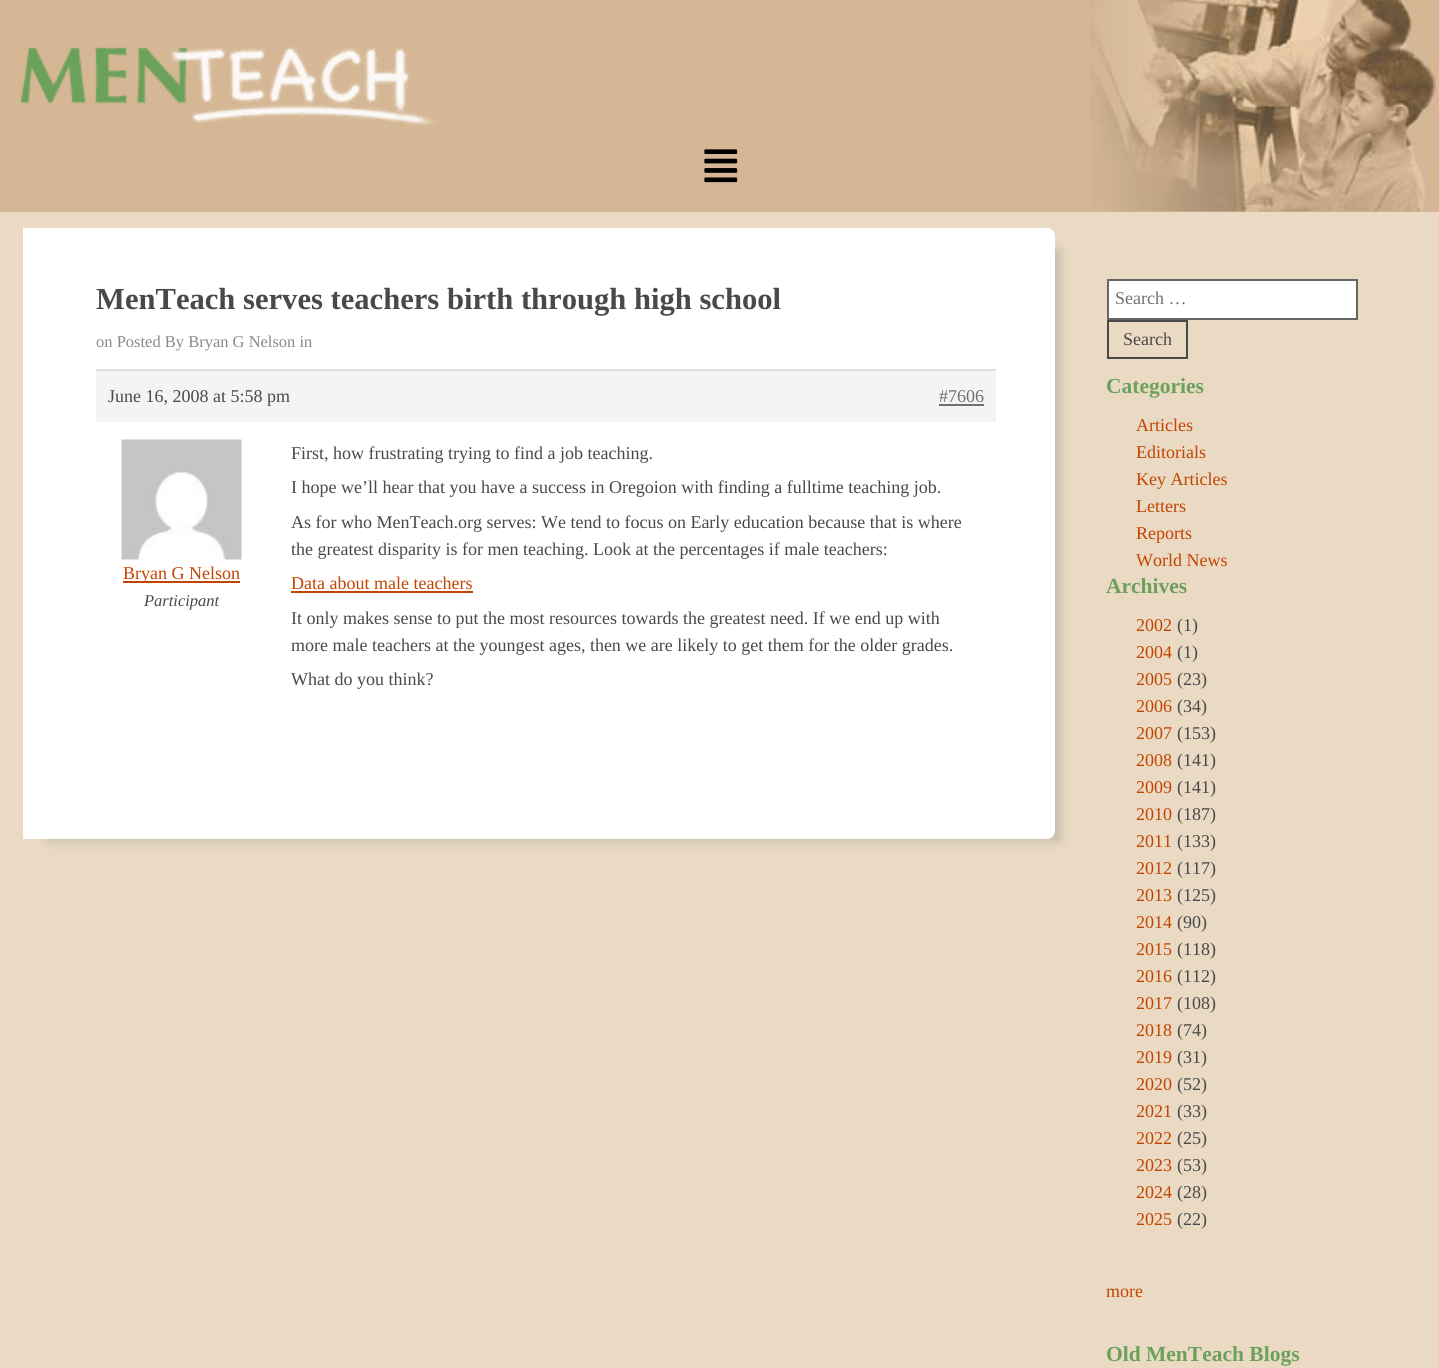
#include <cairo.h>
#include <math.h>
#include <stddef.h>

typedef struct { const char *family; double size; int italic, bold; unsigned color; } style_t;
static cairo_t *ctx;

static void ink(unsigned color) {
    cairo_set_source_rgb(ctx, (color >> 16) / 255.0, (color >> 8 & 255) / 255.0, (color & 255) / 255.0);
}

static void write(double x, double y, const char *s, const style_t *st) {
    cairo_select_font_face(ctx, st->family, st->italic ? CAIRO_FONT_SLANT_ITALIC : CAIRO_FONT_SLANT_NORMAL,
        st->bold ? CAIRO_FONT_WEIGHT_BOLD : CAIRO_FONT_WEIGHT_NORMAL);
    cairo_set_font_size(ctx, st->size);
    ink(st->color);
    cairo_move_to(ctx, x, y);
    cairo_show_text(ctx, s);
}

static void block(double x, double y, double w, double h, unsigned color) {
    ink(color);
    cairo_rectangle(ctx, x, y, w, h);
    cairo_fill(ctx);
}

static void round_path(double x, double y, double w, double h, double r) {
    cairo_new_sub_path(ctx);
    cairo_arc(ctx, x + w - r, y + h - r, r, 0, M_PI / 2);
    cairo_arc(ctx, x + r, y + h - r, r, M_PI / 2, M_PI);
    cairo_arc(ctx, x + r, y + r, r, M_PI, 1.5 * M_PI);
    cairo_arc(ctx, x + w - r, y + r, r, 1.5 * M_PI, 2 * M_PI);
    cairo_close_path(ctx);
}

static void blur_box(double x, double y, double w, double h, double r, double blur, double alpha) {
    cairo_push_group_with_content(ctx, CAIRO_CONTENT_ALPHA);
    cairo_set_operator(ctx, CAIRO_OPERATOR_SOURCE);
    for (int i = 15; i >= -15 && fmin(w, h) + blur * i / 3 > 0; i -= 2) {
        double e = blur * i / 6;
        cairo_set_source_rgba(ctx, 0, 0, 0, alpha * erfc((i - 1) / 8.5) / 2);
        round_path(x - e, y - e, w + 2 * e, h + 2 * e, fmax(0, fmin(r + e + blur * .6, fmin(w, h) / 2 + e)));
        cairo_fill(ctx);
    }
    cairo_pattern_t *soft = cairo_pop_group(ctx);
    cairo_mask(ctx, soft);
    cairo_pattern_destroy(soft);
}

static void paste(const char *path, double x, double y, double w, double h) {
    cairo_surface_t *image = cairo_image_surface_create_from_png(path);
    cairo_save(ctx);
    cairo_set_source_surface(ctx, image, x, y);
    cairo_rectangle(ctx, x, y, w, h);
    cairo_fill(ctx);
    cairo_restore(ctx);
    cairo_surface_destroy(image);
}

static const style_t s1 = {"Liberation Serif", 30.6, 0, 1, 0x494949};
static const style_t s2 = {"Liberation Serif", 16.5, 0, 0, 0x898989};
static const style_t s3 = {"Liberation Serif", 18, 0, 0, 0x494949};
static const style_t s4 = {"Liberation Serif", 18, 0, 0, 0x707070};
static const style_t s5 = {"Liberation Serif", 18, 0, 0, 0xc24400};
static const style_t s6 = {"Liberation Serif", 16.5, 1, 0, 0x494949};
static const style_t s7 = {"Liberation Serif", 21.5, 0, 1, 0x6ca15b};

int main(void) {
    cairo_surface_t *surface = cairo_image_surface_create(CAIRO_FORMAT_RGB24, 1439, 1368);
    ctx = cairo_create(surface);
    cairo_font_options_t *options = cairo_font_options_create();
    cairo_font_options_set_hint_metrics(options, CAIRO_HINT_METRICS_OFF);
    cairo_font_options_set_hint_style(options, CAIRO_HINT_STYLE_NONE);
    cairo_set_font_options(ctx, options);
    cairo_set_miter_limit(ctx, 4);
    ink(0xd5b795);
    cairo_paint(ctx);
    paste("pic1.png", 1090, 0, 348, 212);
    paste("pic2.png", 20, 46, 419, 81);
    paste("pic3.png", 704, 149, 34, 34);
    block(0, 212, 1439, 1156, 0xeadac3);
    ink(0xbeb4a8);
    blur_box(48, 251, 1011, 589, 0, 6, 1);
    ink(0xffffff);
    cairo_new_path(ctx);
    cairo_move_to(ctx, 23, 228);
    cairo_line_to(ctx, 1047, 228);
    cairo_curve_to(ctx, 1051.5, 228, 1055, 231.5, 1055, 236);
    cairo_line_to(ctx, 1055, 831);
    cairo_curve_to(ctx, 1055, 835.5, 1051.5, 839, 1047, 839);
    cairo_line_to(ctx, 23, 839);
    cairo_close_path(ctx);
    cairo_fill(ctx);
    write(96, 309, "MenTeach serves teachers birth through high school", &s1);
    write(96, 347, "on Posted By Bryan G Nelson in", &s2);
    block(96, 371, 900, 51, 0xf4f4f4);
    block(96, 369, 900, 2, 0xdddddd);
    write(108, 402, "June 16, 2008 at 5:58 pm", &s3);
    write(939, 402, "#7606", &s4);
    block(939, 404, 45, 2, 0x707070);
    paste("pic4.png", 121, 439, 121, 121);
    block(123, 581, 117, 2, 0xc24400);
    write(123, 579, "Bryan G Nelson", &s5);
    write(144, 606, "Participant", &s6);
    write(291, 459, "First, how frustrating trying to find a job teaching.", &s3);
    write(291, 493, "I hope we’ll hear that you have a success in Oregoion with finding a fulltime teaching job.", &s3);
    write(291, 528, "As for who MenTeach.org serves: We tend to focus on Early education because that is where", &s3);
    write(291, 555, "the greatest disparity is for men teaching. Look at the percentages if male teachers:", &s3);
    write(291, 589, "Data about male teachers", &s5);
    block(291, 591, 182, 2, 0xc24400);
    write(291, 624, "It only makes sense to put the most resources towards the greatest need. If we end up with", &s3);
    write(291, 651, "more male teachers at the youngest ages, then we are likely to get them for the older grades.", &s3);
    write(291, 685, "What do you think?", &s3);
    ink(0xffffff);
    cairo_rectangle(ctx, 1108, 280, 249, 39);
    cairo_fill_preserve(ctx);
    ink(0x666666);
    cairo_stroke(ctx);
    write(1115, 304, "Search …", &s4);
    cairo_rectangle(ctx, 1108, 321, 79, 37);
    ink(0x494949);
    cairo_stroke(ctx);
    write(1123, 345, "Search", &s3);
    write(1106, 393, "Categories", &s7);
    write(1136, 431, "Articles", &s5);
    write(1136, 458, "Editorials", &s5);
    write(1136, 485, "Key Articles", &s5);
    write(1136, 512, "Letters", &s5);
    write(1136, 539, "Reports", &s5);
    write(1136, 566, "World News", &s5);
    write(1106, 593, "Archives", &s7);
    write(1136, 631, "2002", &s5);
    write(1177, 631, "(1)", &s3);
    write(1136, 658, "2004", &s5);
    write(1177, 658, "(1)", &s3);
    write(1136, 685, "2005", &s5);
    write(1177, 685, "(23)", &s3);
    write(1136, 712, "2006", &s5);
    write(1177, 712, "(34)", &s3);
    write(1136, 739, "2007", &s5);
    write(1177, 739, "(153)", &s3);
    write(1136, 766, "2008", &s5);
    write(1177, 766, "(141)", &s3);
    write(1136, 793, "2009", &s5);
    write(1177, 793, "(141)", &s3);
    write(1136, 820, "2010", &s5);
    write(1177, 820, "(187)", &s3);
    write(1136, 847, "2011", &s5);
    write(1177, 847, "(133)", &s3);
    write(1136, 874, "2012", &s5);
    write(1177, 874, "(117)", &s3);
    write(1136, 901, "2013", &s5);
    write(1177, 901, "(125)", &s3);
    write(1136, 928, "2014", &s5);
    write(1177, 928, "(90)", &s3);
    write(1136, 955, "2015", &s5);
    write(1177, 955, "(118)", &s3);
    write(1136, 982, "2016", &s5);
    write(1177, 982, "(112)", &s3);
    write(1136, 1009, "2017", &s5);
    write(1177, 1009, "(108)", &s3);
    write(1136, 1036, "2018", &s5);
    write(1177, 1036, "(74)", &s3);
    write(1136, 1063, "2019", &s5);
    write(1177, 1063, "(31)", &s3);
    write(1136, 1090, "2020", &s5);
    write(1177, 1090, "(52)", &s3);
    write(1136, 1117, "2021", &s5);
    write(1177, 1117, "(33)", &s3);
    write(1136, 1144, "2022", &s5);
    write(1177, 1144, "(25)", &s3);
    write(1136, 1171, "2023", &s5);
    write(1177, 1171, "(53)", &s3);
    write(1136, 1198, "2024", &s5);
    write(1177, 1198, "(28)", &s3);
    write(1136, 1225, "2025", &s5);
    write(1177, 1225, "(22)", &s3);
    write(1106, 1297, "more", &s5);
    write(1106, 1361, "Old MenTeach Blogs", &s7);
    cairo_surface_write_to_png(surface, "screenshot.png");
    cairo_font_options_destroy(options);
    cairo_destroy(ctx);
    cairo_surface_destroy(surface);
    return 0;
}
